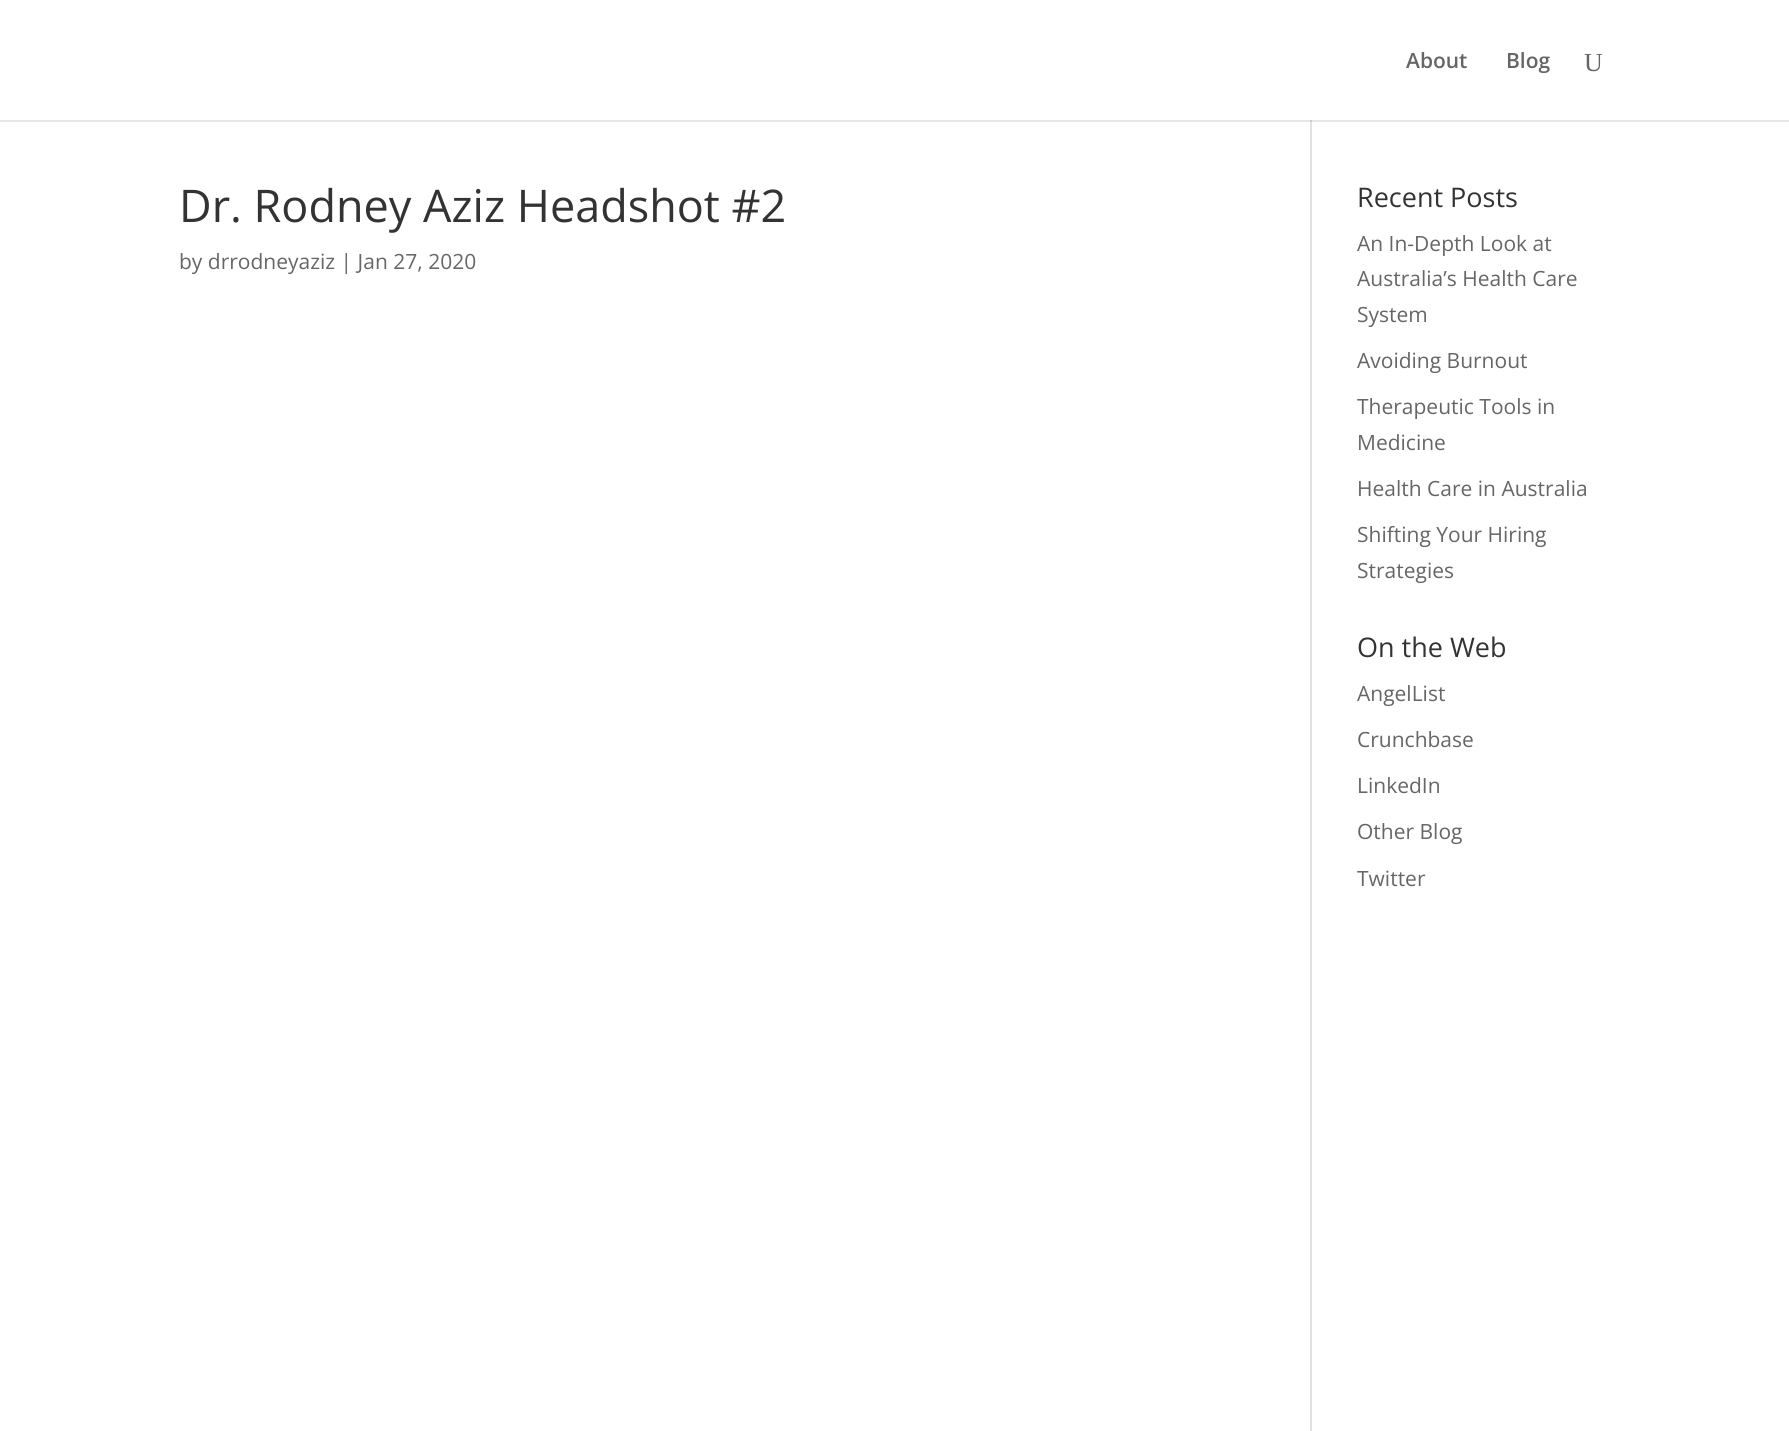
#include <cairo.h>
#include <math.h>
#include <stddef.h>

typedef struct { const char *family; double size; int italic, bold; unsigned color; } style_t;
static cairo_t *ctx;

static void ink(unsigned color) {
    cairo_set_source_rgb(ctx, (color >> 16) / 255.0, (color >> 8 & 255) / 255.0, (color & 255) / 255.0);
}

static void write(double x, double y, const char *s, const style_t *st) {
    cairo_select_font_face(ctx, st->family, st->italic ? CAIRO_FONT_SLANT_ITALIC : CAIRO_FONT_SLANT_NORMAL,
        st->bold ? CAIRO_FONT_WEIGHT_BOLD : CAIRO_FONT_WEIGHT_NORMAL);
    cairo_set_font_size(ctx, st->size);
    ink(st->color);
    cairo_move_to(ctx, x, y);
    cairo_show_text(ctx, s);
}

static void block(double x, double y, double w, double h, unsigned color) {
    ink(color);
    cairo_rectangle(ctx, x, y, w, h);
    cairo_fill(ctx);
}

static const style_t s1 = {"Open Sans SemiBold", 21, 0, 0, 0x666666};
static const style_t s2 = {"Liberation Serif", 26, 0, 0, 0x666666};
static const style_t s3 = {"Open Sans", 45, 0, 0, 0x333333};
static const style_t s4 = {"Open Sans", 21, 0, 0, 0x666666};
static const style_t s5 = {"Open Sans", 27, 0, 0, 0x333333};

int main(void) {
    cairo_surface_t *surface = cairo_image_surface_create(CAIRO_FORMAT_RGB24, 1789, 1431);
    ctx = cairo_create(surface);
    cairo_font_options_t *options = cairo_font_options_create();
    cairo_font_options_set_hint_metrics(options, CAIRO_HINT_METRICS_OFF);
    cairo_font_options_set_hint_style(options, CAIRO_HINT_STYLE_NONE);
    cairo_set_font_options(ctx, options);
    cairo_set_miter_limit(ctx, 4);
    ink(0xffffff);
    cairo_paint(ctx);
    block(1310, 120, 2, 1311, 0xe2e2e2);
    cairo_set_source_rgba(ctx, 0, 0, 0, 0.1);
    cairo_new_path(ctx);
    cairo_move_to(ctx, 0, 120);
    cairo_line_to(ctx, 0, 122);
    cairo_line_to(ctx, 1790, 122);
    cairo_line_to(ctx, 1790, 2);
    cairo_line_to(ctx, 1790, 120);
    cairo_close_path(ctx);
    cairo_fill(ctx);
    write(1406, 68, "About", &s1);
    write(1506, 68, "Blog", &s1);
    write(1584, 71, "U", &s2);
    write(179, 222, "Dr. Rodney Aziz Headshot #2", &s3);
    write(179, 269, "by drrodneyaziz | Jan 27, 2020", &s4);
    write(1357, 207, "Recent Posts", &s5);
    write(1357, 251, "An In-Depth Look at", &s4);
    write(1357, 286, "Australia’s Health Care", &s4);
    write(1357, 322, "System", &s4);
    write(1357, 368, "Avoiding Burnout", &s4);
    write(1357, 414, "Therapeutic Tools in", &s4);
    write(1357, 450, "Medicine", &s4);
    write(1357, 496, "Health Care in Australia", &s4);
    write(1357, 542, "Shifting Your Hiring", &s4);
    write(1357, 578, "Strategies", &s4);
    write(1357, 657, "On the Web", &s5);
    write(1357, 701, "AngelList", &s4);
    write(1357, 747, "Crunchbase", &s4);
    write(1357, 793, "LinkedIn", &s4);
    write(1357, 839, "Other Blog", &s4);
    write(1357, 886, "Twitter", &s4);
    cairo_surface_write_to_png(surface, "screenshot.png");
    cairo_font_options_destroy(options);
    cairo_destroy(ctx);
    cairo_surface_destroy(surface);
    return 0;
}
